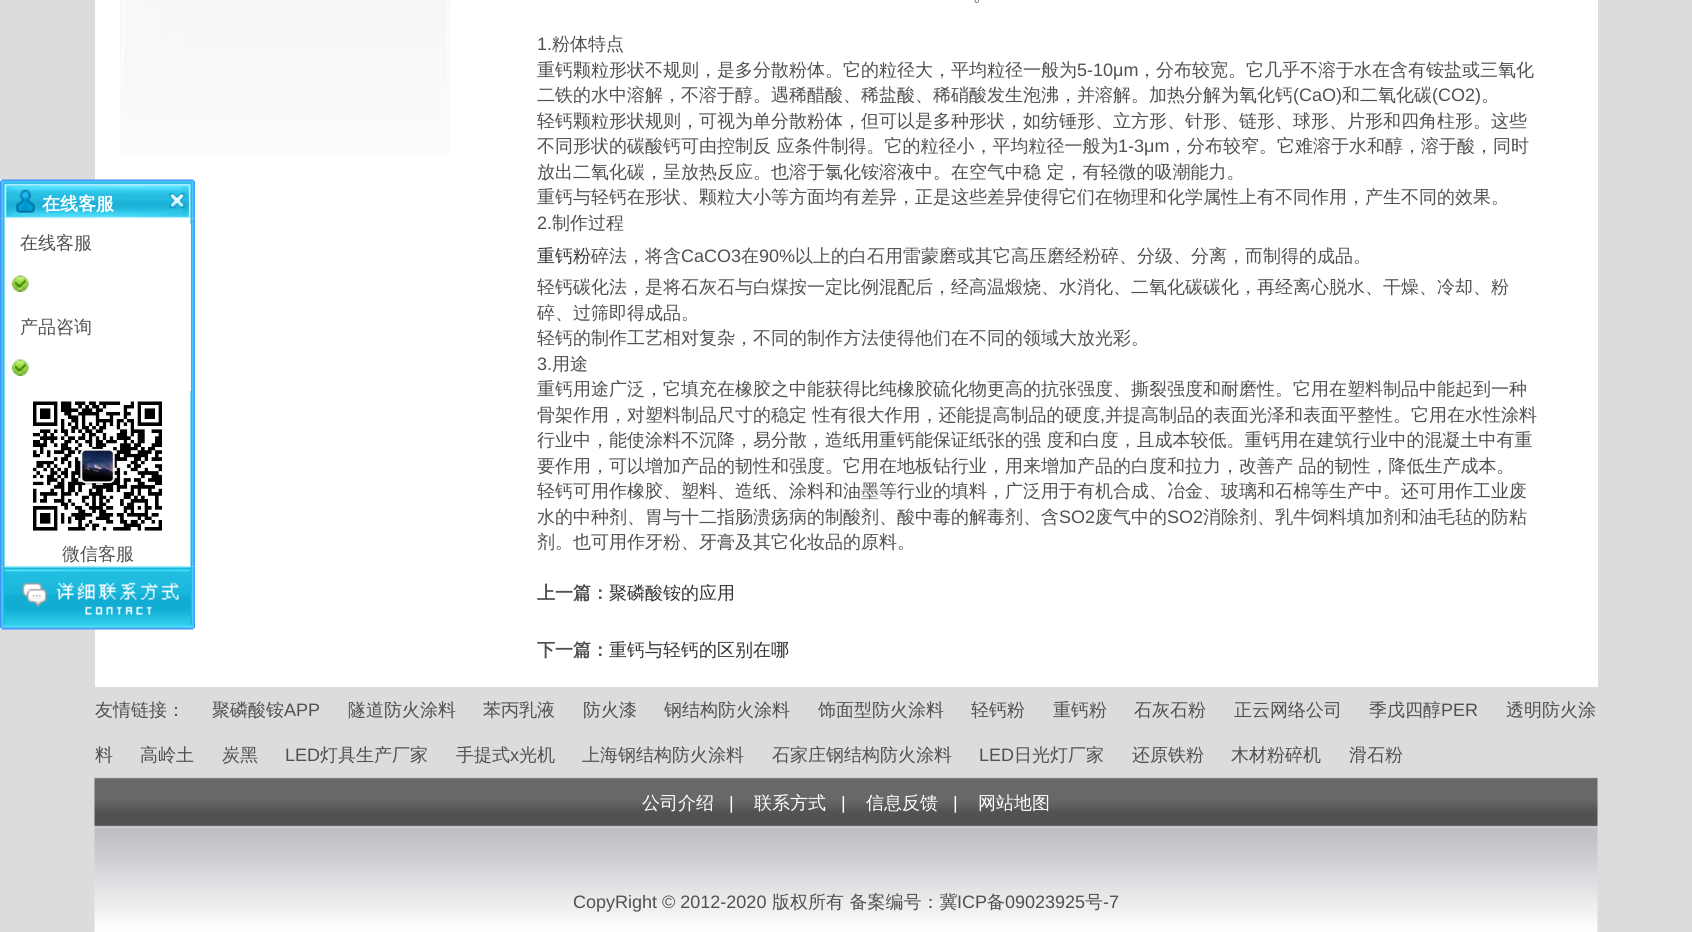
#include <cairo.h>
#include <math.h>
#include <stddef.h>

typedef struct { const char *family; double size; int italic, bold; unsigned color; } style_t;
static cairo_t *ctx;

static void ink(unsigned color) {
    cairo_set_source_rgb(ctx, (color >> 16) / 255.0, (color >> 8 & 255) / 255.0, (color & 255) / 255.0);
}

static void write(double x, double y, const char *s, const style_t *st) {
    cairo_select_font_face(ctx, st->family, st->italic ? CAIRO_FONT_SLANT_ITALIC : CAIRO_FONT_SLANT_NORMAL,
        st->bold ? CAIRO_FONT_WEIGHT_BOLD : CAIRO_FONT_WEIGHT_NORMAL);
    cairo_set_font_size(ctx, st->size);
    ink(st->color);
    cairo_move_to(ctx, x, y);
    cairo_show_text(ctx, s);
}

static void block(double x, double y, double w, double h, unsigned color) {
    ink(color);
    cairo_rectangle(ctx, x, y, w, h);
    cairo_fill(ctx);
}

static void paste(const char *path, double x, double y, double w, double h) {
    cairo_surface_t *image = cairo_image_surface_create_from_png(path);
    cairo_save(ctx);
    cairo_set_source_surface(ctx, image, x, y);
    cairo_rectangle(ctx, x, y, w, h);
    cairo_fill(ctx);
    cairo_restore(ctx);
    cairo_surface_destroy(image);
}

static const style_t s1 = {"WenQuanYi Zen Hei", 18, 0, 1, 0xffffff};
static const style_t s2 = {"WenQuanYi Zen Hei Medium", 18, 0, 0, 0x505050};
static const style_t s3 = {"Liberation Sans", 18, 0, 0, 0x505050};
static const style_t s4 = {"WenQuanYi Zen Hei Medium", 18, 0, 0, 0x333333};
static const style_t s5 = {"WenQuanYi Zen Hei", 18, 0, 1, 0x505050};
static const style_t s6 = {"WenQuanYi Zen Hei Medium", 18, 0, 0, 0xffffff};
static const style_t s7 = {"Liberation Sans", 18, 0, 0, 0xffffff};

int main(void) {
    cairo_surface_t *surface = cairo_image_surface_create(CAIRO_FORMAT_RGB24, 1692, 932);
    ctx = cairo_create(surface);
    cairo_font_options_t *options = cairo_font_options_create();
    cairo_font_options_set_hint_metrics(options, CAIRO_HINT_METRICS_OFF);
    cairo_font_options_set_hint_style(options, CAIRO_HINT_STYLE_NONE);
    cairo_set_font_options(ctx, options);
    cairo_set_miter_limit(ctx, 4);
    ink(0xdcdcdc);
    cairo_paint(ctx);
    block(95, 0, 1503, 687, 0xffffff);
    paste("pic1.png", 0, 179, 195, 40);
    write(42, 210, "在线客服", &s1);
    paste("pic2.png", 169, 193, 16, 15);
    paste("pic3.png", 0, 218, 195, 5);
    paste("pic4.png", 0, 223, 195, 168);
    block(190, 224, 1, 167, 0xffffff);
    write(20, 249, "在线客服", &s2);
    paste("pic5.png", 11, 275, 18, 17);
    write(20, 333, "产品咨询", &s2);
    paste("pic5.png", 11, 359, 18, 17);
    paste("pic6.png", 0, 391, 195, 176);
    paste("pic7.png", 33, 401, 129, 130);
    write(62, 560, "微信客服", &s2);
    paste("pic8.png", 0, 566, 195, 64);
    paste("pic9.png", 120, 0, 330, 156);
    write(973, 1, "。", &s2);
    write(537, 50, "1.", &s3);
    write(552, 50, "粉体特点", &s2);
    write(537, 76, "重钙颗粒形状不规则，是多分散粉体。它的粒径大，平均粒径一般为", &s2);
    write(1077, 76, "5-10μm", &s3);
    write(1138, 76, "，分布较宽。它几乎不溶于水在含有铵盐或三氧化", &s2);
    write(537, 101, "二铁的水中溶解，不溶于醇。遇稀醋酸、稀盐酸、稀硝酸发生泡沸，并溶解。加热分解为氧化钙", &s2);
    write(1293, 101, "(CaO)", &s3);
    write(1342, 101, "和二氧化碳", &s2);
    write(1432, 101, "(CO2)", &s3);
    write(1481, 101, "。", &s2);
    write(537, 127, "轻钙颗粒形状规则，可视为单分散粉体，但可以是多种形状，如纺锤形、立方形、针形、链形、球形、片形和四角柱形。这些", &s2);
    write(537, 152, "不同形状的碳酸钙可由控制反 应条件制得。它的粒径小，平均粒径一般为", &s2);
    write(1118, 152, "1-3μm", &s3);
    write(1169, 152, "，分布较窄。它难溶于水和醇，溶于酸，同时", &s2);
    write(537, 178, "放出二氧化碳，呈放热反应。也溶于氯化铵溶液中。在空气中稳 定，有轻微的吸潮能力。", &s2);
    write(537, 203, "重钙与轻钙在形状、颗粒大小等方面均有差异，正是这些差异使得它们在物理和化学属性上有不同作用，产生不同的效果。", &s2);
    write(537, 229, "2.", &s3);
    write(552, 229, "制作过程", &s2);
    write(537, 262, "重钙粉", &s4);
    write(591, 262, "碎法，将含", &s2);
    write(681, 262, "CaCO3", &s3);
    write(741, 262, "在", &s2);
    write(759, 262, "90%", &s3);
    write(795, 262, "以上的白石用雷蒙磨或其它高压磨经粉碎、分级、分离，而制得的成品。", &s2);
    write(537, 293, "轻钙碳化法，是将石灰石与白煤按一定比例混配后，经高温煅烧、水消化、二氧化碳碳化，再经离心脱水、干燥、冷却、粉", &s2);
    write(537, 319, "碎、过筛即得成品。", &s2);
    write(537, 344, "轻钙的制作工艺相对复杂，不同的制作方法使得他们在不同的领域大放光彩。", &s2);
    write(537, 370, "3.", &s3);
    write(552, 370, "用途", &s2);
    write(537, 395, "重钙用途广泛，它填充在橡胶之中能获得比纯橡胶硫化物更高的抗张强度、撕裂强度和耐磨性。它用在塑料制品中能起到一种", &s2);
    write(537, 421, "骨架作用，对塑料制品尺寸的稳定 性有很大作用，还能提高制品的硬度", &s2);
    write(1100, 421, ",", &s3);
    write(1105, 421, "并提高制品的表面光泽和表面平整性。它用在水性涂料", &s2);
    write(537, 446, "行业中，能使涂料不沉降，易分散，造纸用重钙能保证纸张的强 度和白度，且成本较低。重钙用在建筑行业中的混凝土中有重", &s2);
    write(537, 472, "要作用，可以增加产品的韧性和强度。它用在地板钻行业，用来增加产品的白度和拉力，改善产 品的韧性，降低生产成本。", &s2);
    write(537, 497, "轻钙可用作橡胶、塑料、造纸、涂料和油墨等行业的填料，广泛用于有机合成、冶金、玻璃和石棉等生产中。还可用作工业废", &s2);
    write(537, 523, "水的中种剂、胃与十二指肠溃疡病的制酸剂、酸中毒的解毒剂、含", &s2);
    write(1059, 523, "SO2", &s3);
    write(1095, 523, "废气中的", &s2);
    write(1167, 523, "SO2", &s3);
    write(1203, 523, "消除剂、乳牛饲料填加剂和油毛毡的防粘", &s2);
    write(537, 548, "剂。也可用作牙粉、牙膏及其它化妆品的原料。", &s2);
    write(537, 599, "上一篇：", &s5);
    write(609, 599, "聚磷酸铵的应用", &s4);
    write(537, 656, "下一篇：", &s5);
    write(609, 656, "重钙与轻钙的区别在哪", &s4);
    write(95, 716, "友情链接：", &s2);
    write(212, 716, "聚磷酸铵", &s2);
    write(284, 716, "APP", &s3);
    write(348, 716, "隧道防火涂料", &s2);
    write(483, 716, "苯丙乳液", &s2);
    write(583, 716, "防火漆", &s2);
    write(664, 716, "钢结构防火涂料", &s2);
    write(818, 716, "饰面型防火涂料", &s2);
    write(971, 716, "轻钙粉", &s2);
    write(1053, 716, "重钙粉", &s2);
    write(1134, 716, "石灰石粉", &s2);
    write(1234, 716, "正云网络公司", &s2);
    write(1369, 716, "季戊四醇", &s2);
    write(1441, 716, "PER", &s3);
    write(1506, 716, "透明防火涂", &s2);
    write(95, 761, "料", &s2);
    write(140, 761, "高岭土", &s2);
    write(222, 761, "炭黑", &s2);
    write(285, 761, "LED", &s3);
    write(320, 761, "灯具生产厂家", &s2);
    write(456, 761, "手提式", &s2);
    write(510, 761, "x", &s3);
    write(519, 761, "光机", &s2);
    write(582, 761, "上海钢结构防火涂料", &s2);
    write(772, 761, "石家庄钢结构防火涂料", &s2);
    write(979, 761, "LED", &s3);
    write(1014, 761, "日光灯厂家", &s2);
    write(1132, 761, "还原铁粉", &s2);
    write(1231, 761, "木材粉碎机", &s2);
    write(1349, 761, "滑石粉", &s2);
    paste("pic10.png", 94, 777, 1504, 155);
    write(642, 809, "公司介绍", &s6);
    write(729, 809, "|", &s7);
    write(754, 809, "联系方式", &s6);
    write(841, 809, "|", &s7);
    write(866, 809, "信息反馈", &s6);
    write(953, 809, "|", &s7);
    write(978, 809, "网站地图", &s6);
    write(573, 908, "CopyRight © 2012-2020", &s3);
    write(772, 908, "版权所有 备案编号：冀", &s2);
    write(957, 908, "ICP", &s3);
    write(987, 908, "备", &s2);
    write(1005, 908, "09023925", &s3);
    write(1085, 908, "号", &s2);
    write(1103, 908, "-7", &s3);
    cairo_surface_write_to_png(surface, "screenshot.png");
    cairo_font_options_destroy(options);
    cairo_destroy(ctx);
    cairo_surface_destroy(surface);
    return 0;
}
